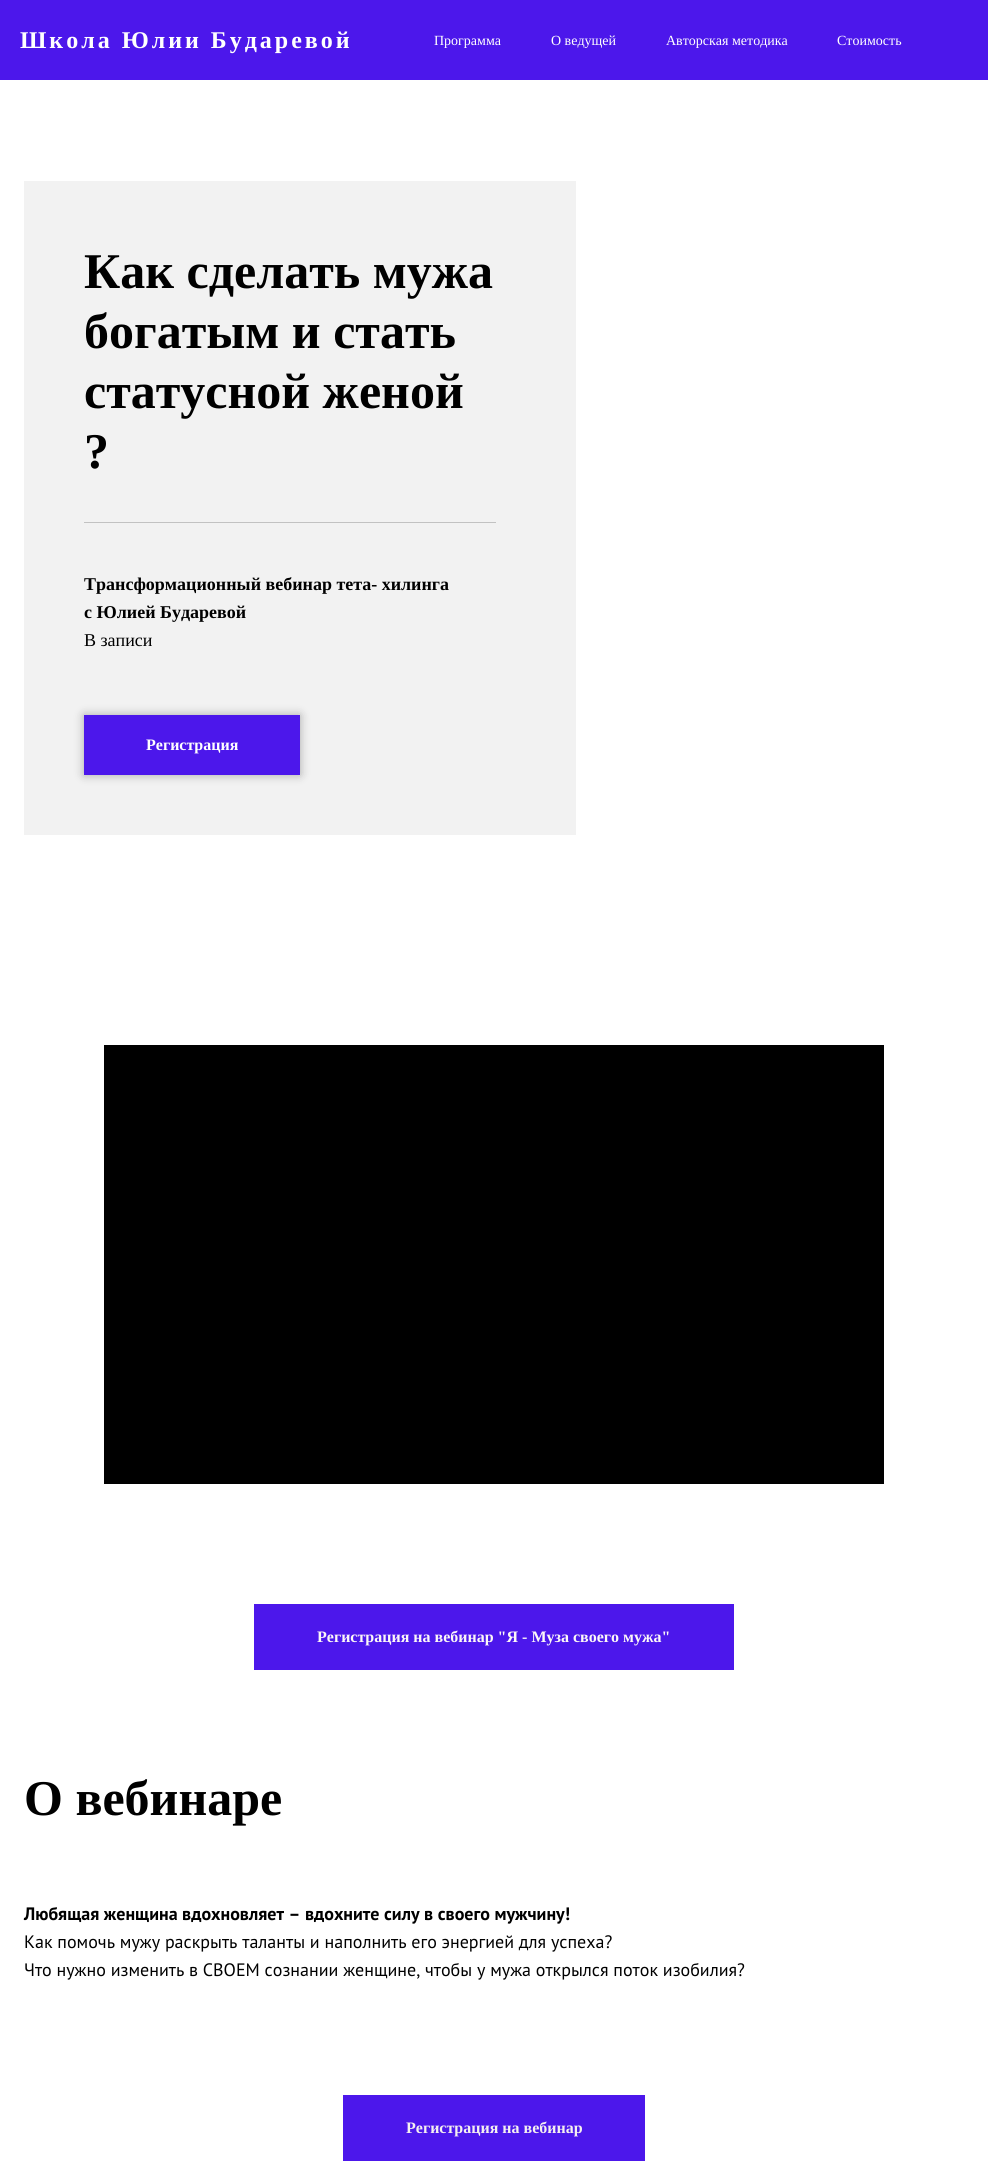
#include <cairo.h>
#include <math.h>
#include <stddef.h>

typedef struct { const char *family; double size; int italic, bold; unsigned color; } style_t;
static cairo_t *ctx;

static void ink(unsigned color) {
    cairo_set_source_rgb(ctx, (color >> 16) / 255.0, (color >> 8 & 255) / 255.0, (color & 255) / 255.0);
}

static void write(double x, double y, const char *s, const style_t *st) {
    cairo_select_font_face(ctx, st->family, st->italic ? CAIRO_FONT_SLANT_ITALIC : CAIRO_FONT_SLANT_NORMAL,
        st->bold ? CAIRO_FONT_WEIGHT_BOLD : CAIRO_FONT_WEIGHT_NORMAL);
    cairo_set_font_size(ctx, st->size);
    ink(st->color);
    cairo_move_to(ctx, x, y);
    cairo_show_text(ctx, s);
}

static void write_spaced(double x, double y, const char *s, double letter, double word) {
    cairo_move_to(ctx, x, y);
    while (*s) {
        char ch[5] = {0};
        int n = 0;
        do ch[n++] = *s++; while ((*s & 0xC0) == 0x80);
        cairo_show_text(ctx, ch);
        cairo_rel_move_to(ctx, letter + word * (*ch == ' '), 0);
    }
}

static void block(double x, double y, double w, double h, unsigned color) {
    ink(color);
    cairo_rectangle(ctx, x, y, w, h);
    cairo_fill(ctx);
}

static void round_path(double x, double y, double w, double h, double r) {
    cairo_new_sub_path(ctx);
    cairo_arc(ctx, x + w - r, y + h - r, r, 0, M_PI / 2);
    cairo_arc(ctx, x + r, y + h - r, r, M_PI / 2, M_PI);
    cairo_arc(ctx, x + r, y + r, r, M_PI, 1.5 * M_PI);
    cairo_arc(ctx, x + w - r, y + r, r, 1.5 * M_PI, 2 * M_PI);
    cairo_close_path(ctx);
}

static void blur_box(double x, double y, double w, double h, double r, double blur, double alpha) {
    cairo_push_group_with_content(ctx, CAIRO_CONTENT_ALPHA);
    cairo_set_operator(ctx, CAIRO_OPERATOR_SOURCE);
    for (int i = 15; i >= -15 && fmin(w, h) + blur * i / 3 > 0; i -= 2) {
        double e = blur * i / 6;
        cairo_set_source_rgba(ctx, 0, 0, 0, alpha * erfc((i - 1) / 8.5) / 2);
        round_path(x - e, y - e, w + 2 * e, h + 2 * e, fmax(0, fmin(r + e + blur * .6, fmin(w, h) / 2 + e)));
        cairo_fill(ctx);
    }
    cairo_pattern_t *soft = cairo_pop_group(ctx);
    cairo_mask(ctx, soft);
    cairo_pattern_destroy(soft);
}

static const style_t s1 = {"Liberation Serif", 14, 0, 0, 0xffffff};
static const style_t s2 = {"Liberation Serif", 50, 0, 1, 0x000000};
static const style_t s3 = {"Liberation Serif", 18, 0, 1, 0x000000};
static const style_t s4 = {"Liberation Serif", 18, 0, 0, 0x000000};
static const style_t s5 = {"Liberation Serif", 16, 0, 1, 0xffffff};
static const style_t s6 = {"Liberation Serif", 16, 0, 1, 0xfcf7f7};
static const style_t s7 = {"PT Sans", 18, 0, 1, 0x000000};
static const style_t s8 = {"PT Sans", 18, 0, 0, 0x000000};
static const style_t s9 = {"Liberation Serif", 16, 0, 1, 0xf5f0f0};

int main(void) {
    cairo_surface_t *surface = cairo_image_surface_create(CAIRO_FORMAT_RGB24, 988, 2162);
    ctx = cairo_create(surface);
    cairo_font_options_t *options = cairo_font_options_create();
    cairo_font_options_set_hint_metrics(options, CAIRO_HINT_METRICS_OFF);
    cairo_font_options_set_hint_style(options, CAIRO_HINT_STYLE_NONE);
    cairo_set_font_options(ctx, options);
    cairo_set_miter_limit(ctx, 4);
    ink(0xffffff);
    cairo_paint(ctx);
    block(0, 0, 988, 80, 0x4c17eb);
    cairo_select_font_face(ctx, "Liberation Serif", CAIRO_FONT_SLANT_NORMAL, CAIRO_FONT_WEIGHT_BOLD);
    cairo_set_font_size(ctx, 24);
    ink(0xffffff);
    write_spaced(20, 48, "Школа Юлии Бударевой", 3, 0);
    write(434, 45, "Программа", &s1);
    write(551, 45, "О ведущей", &s1);
    write(666, 45, "Авторская методика", &s1);
    write(837, 45, "Стоимость", &s1);
    block(24, 181, 552, 654, 0xf2f2f2);
    write(84, 288, "Как сделать мужа", &s2);
    write(84, 348, "богатым и стать", &s2);
    write(84, 408, "статусной женой", &s2);
    write(84, 468, "?", &s2);
    block(84, 522, 412, 1, 0xc2c2c2);
    write(84, 590, "Трансформационный вебинар тета- хилинга", &s3);
    write(84, 618, "с Юлией Бударевой", &s3);
    write(84, 646, "В записи", &s4);
    ink(0x000000);
    blur_box(84, 715, 216, 60, 0, 5, 0.3);
    block(84, 715, 216, 60, 0x4c17eb);
    write(146, 750, "Регистрация", &s5);
    block(104, 1045, 780, 439, 0x000000);
    block(254, 1604, 480, 66, 0x4c17eb);
    write(317, 1642, "Регистрация на вебинар \"Я - Муза своего мужа\"", &s6);
    write(24, 1815, "О вебинаре", &s2);
    write(24, 1920, "Любящая женщина вдохновляет – вдохните силу в своего мужчину!", &s7);
    write(24, 1948, "Как помочь мужу раскрыть таланты и наполнить его энергией для успеха?", &s8);
    write(24, 1976, "Что нужно изменить в СВОЕМ сознании женщине, чтобы у мужа открылся поток изобилия?", &s8);
    block(343, 2095, 302, 66, 0x4c17eb);
    write(406, 2133, "Регистрация на вебинар", &s9);
    cairo_surface_write_to_png(surface, "screenshot.png");
    cairo_font_options_destroy(options);
    cairo_destroy(ctx);
    cairo_surface_destroy(surface);
    return 0;
}
